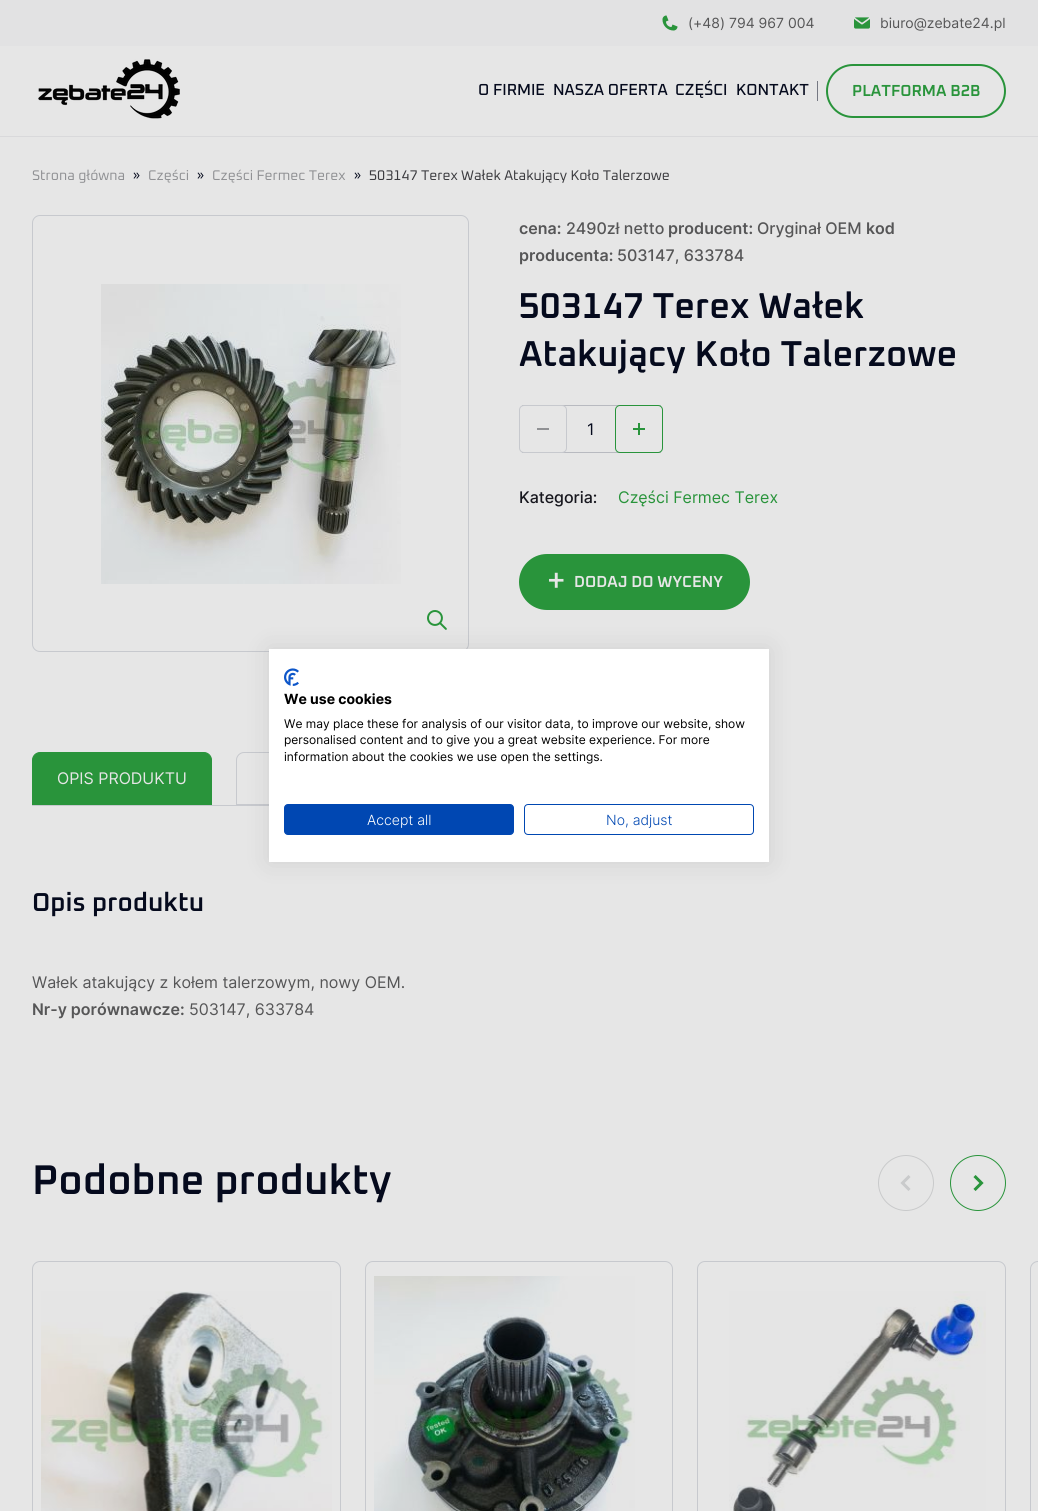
#include <cairo.h>
#include <math.h>
#include <stddef.h>

typedef struct { const char *family; double size; int italic, bold; unsigned color; } style_t;
static cairo_t *ctx;

static void ink(unsigned color) {
    cairo_set_source_rgb(ctx, (color >> 16) / 255.0, (color >> 8 & 255) / 255.0, (color & 255) / 255.0);
}

static void write(double x, double y, const char *s, const style_t *st) {
    cairo_select_font_face(ctx, st->family, st->italic ? CAIRO_FONT_SLANT_ITALIC : CAIRO_FONT_SLANT_NORMAL,
        st->bold ? CAIRO_FONT_WEIGHT_BOLD : CAIRO_FONT_WEIGHT_NORMAL);
    cairo_set_font_size(ctx, st->size);
    ink(st->color);
    cairo_move_to(ctx, x, y);
    cairo_show_text(ctx, s);
}

static void block(double x, double y, double w, double h, unsigned color) {
    ink(color);
    cairo_rectangle(ctx, x, y, w, h);
    cairo_fill(ctx);
}

static void round_path(double x, double y, double w, double h, double r) {
    cairo_new_sub_path(ctx);
    cairo_arc(ctx, x + w - r, y + h - r, r, 0, M_PI / 2);
    cairo_arc(ctx, x + r, y + h - r, r, M_PI / 2, M_PI);
    cairo_arc(ctx, x + r, y + r, r, M_PI, 1.5 * M_PI);
    cairo_arc(ctx, x + w - r, y + r, r, 1.5 * M_PI, 2 * M_PI);
    cairo_close_path(ctx);
}

static void blur_box(double x, double y, double w, double h, double r, double blur, double alpha) {
    cairo_push_group_with_content(ctx, CAIRO_CONTENT_ALPHA);
    cairo_set_operator(ctx, CAIRO_OPERATOR_SOURCE);
    for (int i = 15; i >= -15 && fmin(w, h) + blur * i / 3 > 0; i -= 2) {
        double e = blur * i / 6;
        cairo_set_source_rgba(ctx, 0, 0, 0, alpha * erfc((i - 1) / 8.5) / 2);
        round_path(x - e, y - e, w + 2 * e, h + 2 * e, fmax(0, fmin(r + e + blur * .6, fmin(w, h) / 2 + e)));
        cairo_fill(ctx);
    }
    cairo_pattern_t *soft = cairo_pop_group(ctx);
    cairo_mask(ctx, soft);
    cairo_pattern_destroy(soft);
}

static void paste(const char *path, double x, double y, double w, double h) {
    cairo_surface_t *image = cairo_image_surface_create_from_png(path);
    cairo_save(ctx);
    cairo_set_source_surface(ctx, image, x, y);
    cairo_rectangle(ctx, x, y, w, h);
    cairo_fill(ctx);
    cairo_restore(ctx);
    cairo_surface_destroy(image);
}

static const style_t s1 = {"Inter", 14, 0, 0, 0x565657};
static const style_t s2 = {"Oxanium Medium", 16, 0, 0, 0x050a1d};
static const style_t s3 = {"Oxanium SemiBold", 16, 0, 0, 0x29943b};
static const style_t s4 = {"Oxanium", 14, 0, 0, 0x909194};
static const style_t s5 = {"Oxanium", 14, 0, 0, 0x050a1d};
static const style_t s6 = {"Oxanium", 14, 0, 0, 0x3b3b3f};
static const style_t s7 = {"Inter SemiBold", 16, 0, 0, 0x565657};
static const style_t s8 = {"Inter Medium", 16, 0, 0, 0x565657};
static const style_t s9 = {"Oxanium SemiBold", 36, 0, 0, 0x050a1d};
static const style_t s10 = {"Inter", 16, 0, 0, 0x050a1d};
static const style_t s11 = {"Inter Medium", 16, 0, 0, 0x17171e};
static const style_t s12 = {"Inter", 16, 0, 0, 0x29943b};
static const style_t s13 = {"Oxanium Medium", 32, 0, 0, 0xe6e6e6};
static const style_t s14 = {"Oxanium SemiBold", 16, 0, 0, 0xe6e6e6};
static const style_t s15 = {"Inter", 16, 0, 0, 0xe6e6e6};
static const style_t s16 = {"Oxanium SemiBold", 26, 0, 0, 0x050a1d};
static const style_t s17 = {"Inter", 16, 0, 0, 0x565657};
static const style_t s18 = {"Inter", 14, 0, 1, 0x000000};
static const style_t s19 = {"Inter", 12, 0, 0, 0x000000};
static const style_t s20 = {"Inter Light", 14, 0, 0, 0xffffff};
static const style_t s21 = {"Inter Light", 14, 0, 0, 0x0047b2};
static const style_t s22 = {"Oxanium SemiBold", 41.5, 0, 0, 0x050a1d};

int main(void) {
    cairo_surface_t *surface = cairo_image_surface_create(CAIRO_FORMAT_RGB24, 1038, 1511);
    ctx = cairo_create(surface);
    cairo_font_options_t *options = cairo_font_options_create();
    cairo_font_options_set_hint_metrics(options, CAIRO_HINT_METRICS_OFF);
    cairo_font_options_set_hint_style(options, CAIRO_HINT_STYLE_NONE);
    cairo_set_font_options(ctx, options);
    cairo_set_miter_limit(ctx, 4);
    ink(0xe6e6e6);
    cairo_paint(ctx);
    block(0, 0, 1038, 46, 0xe2e2e3);
    paste("pic1.png", 662, 15, 16, 16);
    write(688, 28, "(+48) 794 967 004", &s1);
    paste("pic2.png", 854, 17, 16, 12);
    write(880, 28, "biuro@zebate24.pl", &s1);
    block(0, 136, 1038, 1, 0xd9d9db);
    paste("pic3.png", 38, 59, 142, 60);
    write(478, 95, "O FIRMIE", &s2);
    write(553, 95, "NASZA OFERTA", &s2);
    write(675, 95, "CZĘŚCI", &s2);
    write(736, 95, "KONTAKT", &s2);
    block(817, 81, 1, 20, 0x757882);
    round_path(827, 65, 178, 52, 26);
    ink(0x29943b);
    cairo_stroke(ctx);
    write(852, 96, "PLATFORMA B2B", &s3);
    write(32, 180, "Strona główna", &s4);
    write(133, 180, "»", &s5);
    write(148, 180, "Części", &s4);
    write(197, 180, "»", &s5);
    write(212, 180, "Części Fermec Terex", &s4);
    write(354, 180, "»", &s5);
    write(369, 180, "503147 Terex Wałek Atakujący Koło Talerzowe", &s6);
    round_path(32.5, 215.5, 436, 436, 7.5);
    ink(0xc7c9ce);
    cairo_set_line_width(ctx, 1);
    cairo_stroke(ctx);
    paste("pic4.png", 101, 284, 300, 300);
    paste("pic5.png", 427, 610, 20, 20);
    write(519, 234, "cena:", &s7);
    write(566, 234, "2490zł netto", &s8);
    write(668, 234, "producent:", &s7);
    write(757, 234, "Oryginał OEM", &s8);
    write(866, 234, "kod", &s7);
    write(519, 261, "producenta:", &s7);
    write(617, 261, "503147, 633784", &s8);
    write(519, 318, "503147 Terex Wałek", &s9);
    write(519, 366, "Atakujący Koło Talerzowe", &s9);
    block(522, 405, 139, 1, 0xb8bac0);
    block(522, 452, 139, 1, 0xb8bac0);
    round_path(519.5, 405.5, 47, 47, 4.5);
    ink(0xc7c9ce);
    cairo_stroke(ctx);
    block(537, 428, 12, 2, 0x909194);
    write(587, 435, "1", &s10);
    round_path(615.5, 405.5, 47, 47, 4.5);
    ink(0x29943b);
    cairo_stroke(ctx);
    block(638, 423, 2, 12, 0x29943b);
    block(633, 428, 12, 2, 0x29943b);
    write(519, 503, "Kategoria:", &s11);
    write(618, 503, "Części Fermec Terex", &s12);
    round_path(520, 555, 229, 54, 27);
    cairo_fill_preserve(ctx);
    cairo_set_line_width(ctx, 2);
    cairo_stroke(ctx);
    write(547, 591, "+", &s13);
    write(574, 587, "DODAJ DO WYCENY", &s14);
    block(32, 805, 237, 1, 0xc7c9ce);
    ink(0x29943b);
    cairo_new_path(ctx);
    cairo_move_to(ctx, 40, 752.5);
    cairo_line_to(ctx, 204, 752.5);
    cairo_curve_to(ctx, 208, 752.5, 211.5, 756, 211.5, 760);
    cairo_line_to(ctx, 211.5, 804.5);
    cairo_line_to(ctx, 32.5, 804.5);
    cairo_line_to(ctx, 32.5, 760);
    cairo_curve_to(ctx, 32.5, 756, 36, 752.5, 40, 752.5);
    cairo_close_path(ctx);
    cairo_fill_preserve(ctx);
    cairo_set_line_width(ctx, 1);
    cairo_stroke(ctx);
    write(57, 784, "OPIS PRODUKTU", &s15);
    cairo_new_path(ctx);
    cairo_move_to(ctx, 244, 752.5);
    cairo_line_to(ctx, 330, 752.5);
    cairo_curve_to(ctx, 334, 752.5, 337.5, 756, 337.5, 760);
    cairo_line_to(ctx, 337.5, 804.5);
    cairo_line_to(ctx, 236.5, 804.5);
    cairo_line_to(ctx, 236.5, 760);
    cairo_curve_to(ctx, 236.5, 756, 240, 752.5, 244, 752.5);
    cairo_close_path(ctx);
    ink(0xc7c9ce);
    cairo_stroke(ctx);
    write(32, 911, "Opis produktu", &s16);
    write(32, 988, "Wałek atakujący z kołem talerzowym, nowy OEM.", &s17);
    write(32, 1015, "Nr-y porównawcze:", &s7);
    write(189, 1015, "503147, 633784", &s17);
    ink(0x000000);
    blur_box(269, 649, 500, 213, 0, 12, 0.1);
    block(269, 649, 500, 213, 0xffffff);
    paste("pic6.png", 284, 668, 15, 18);
    write(284, 704, "We use cookies", &s18);
    write(284, 728, "We may place these for analysis of our visitor data, to improve our website, show", &s19);
    write(284, 744, "personalised content and to give you a great website experience. For more", &s19);
    write(284, 761, "information about the cookies we use open the settings.", &s19);
    ink(0x0047b2);
    round_path(284.5, 804.5, 229, 30, 3.5);
    cairo_fill_preserve(ctx);
    cairo_stroke(ctx);
    write(367, 825, "Accept all", &s20);
    round_path(524.5, 804.5, 229, 30, 3.5);
    ink(0x0047b2);
    cairo_stroke(ctx);
    write(606, 825, "No, adjust", &s21);
    write(32, 1194, "Podobne produkty", &s22);
    cairo_new_path(ctx);
    cairo_move_to(ctx, 906, 1155.5);
    cairo_curve_to(ctx, 891, 1155.5, 878.5, 1168, 878.5, 1183);
    cairo_curve_to(ctx, 878.5, 1198, 891, 1210.5, 906, 1210.5);
    cairo_curve_to(ctx, 921, 1210.5, 933.5, 1198, 933.5, 1183);
    cairo_curve_to(ctx, 933.5, 1168, 921, 1155.5, 906, 1155.5);
    cairo_close_path(ctx);
    ink(0xc9cacb);
    cairo_stroke(ctx);
    cairo_new_path(ctx);
    cairo_move_to(ctx, 909.5, 1176);
    cairo_line_to(ctx, 902.5, 1183);
    cairo_line_to(ctx, 909.5, 1190);
    cairo_set_line_width(ctx, 3);
    cairo_stroke(ctx);
    cairo_arc(ctx, 978, 1183, 27.5, 0, 2 * M_PI);
    ink(0x29943b);
    cairo_set_line_width(ctx, 1);
    cairo_stroke(ctx);
    cairo_new_path(ctx);
    cairo_move_to(ctx, 974.5, 1176);
    cairo_line_to(ctx, 981.5, 1183);
    cairo_line_to(ctx, 974.5, 1190);
    cairo_set_line_width(ctx, 3);
    cairo_stroke(ctx);
    round_path(32.5, 1261.5, 308, 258, 7.5);
    ink(0xc7c9ce);
    cairo_set_line_width(ctx, 1);
    cairo_stroke(ctx);
    paste("pic7.png", 41, 1291, 291, 220);
    round_path(365.5, 1261.5, 307, 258, 7.5);
    cairo_stroke(ctx);
    paste("pic8.png", 374, 1276, 261, 235);
    round_path(697.5, 1261.5, 308, 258, 7.5);
    cairo_stroke(ctx);
    paste("pic9.png", 729, 1291, 257, 220);
    round_path(1030.5, 1261.5, 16, 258, 7.5);
    cairo_stroke(ctx);
    cairo_surface_write_to_png(surface, "screenshot.png");
    cairo_font_options_destroy(options);
    cairo_destroy(ctx);
    cairo_surface_destroy(surface);
    return 0;
}
